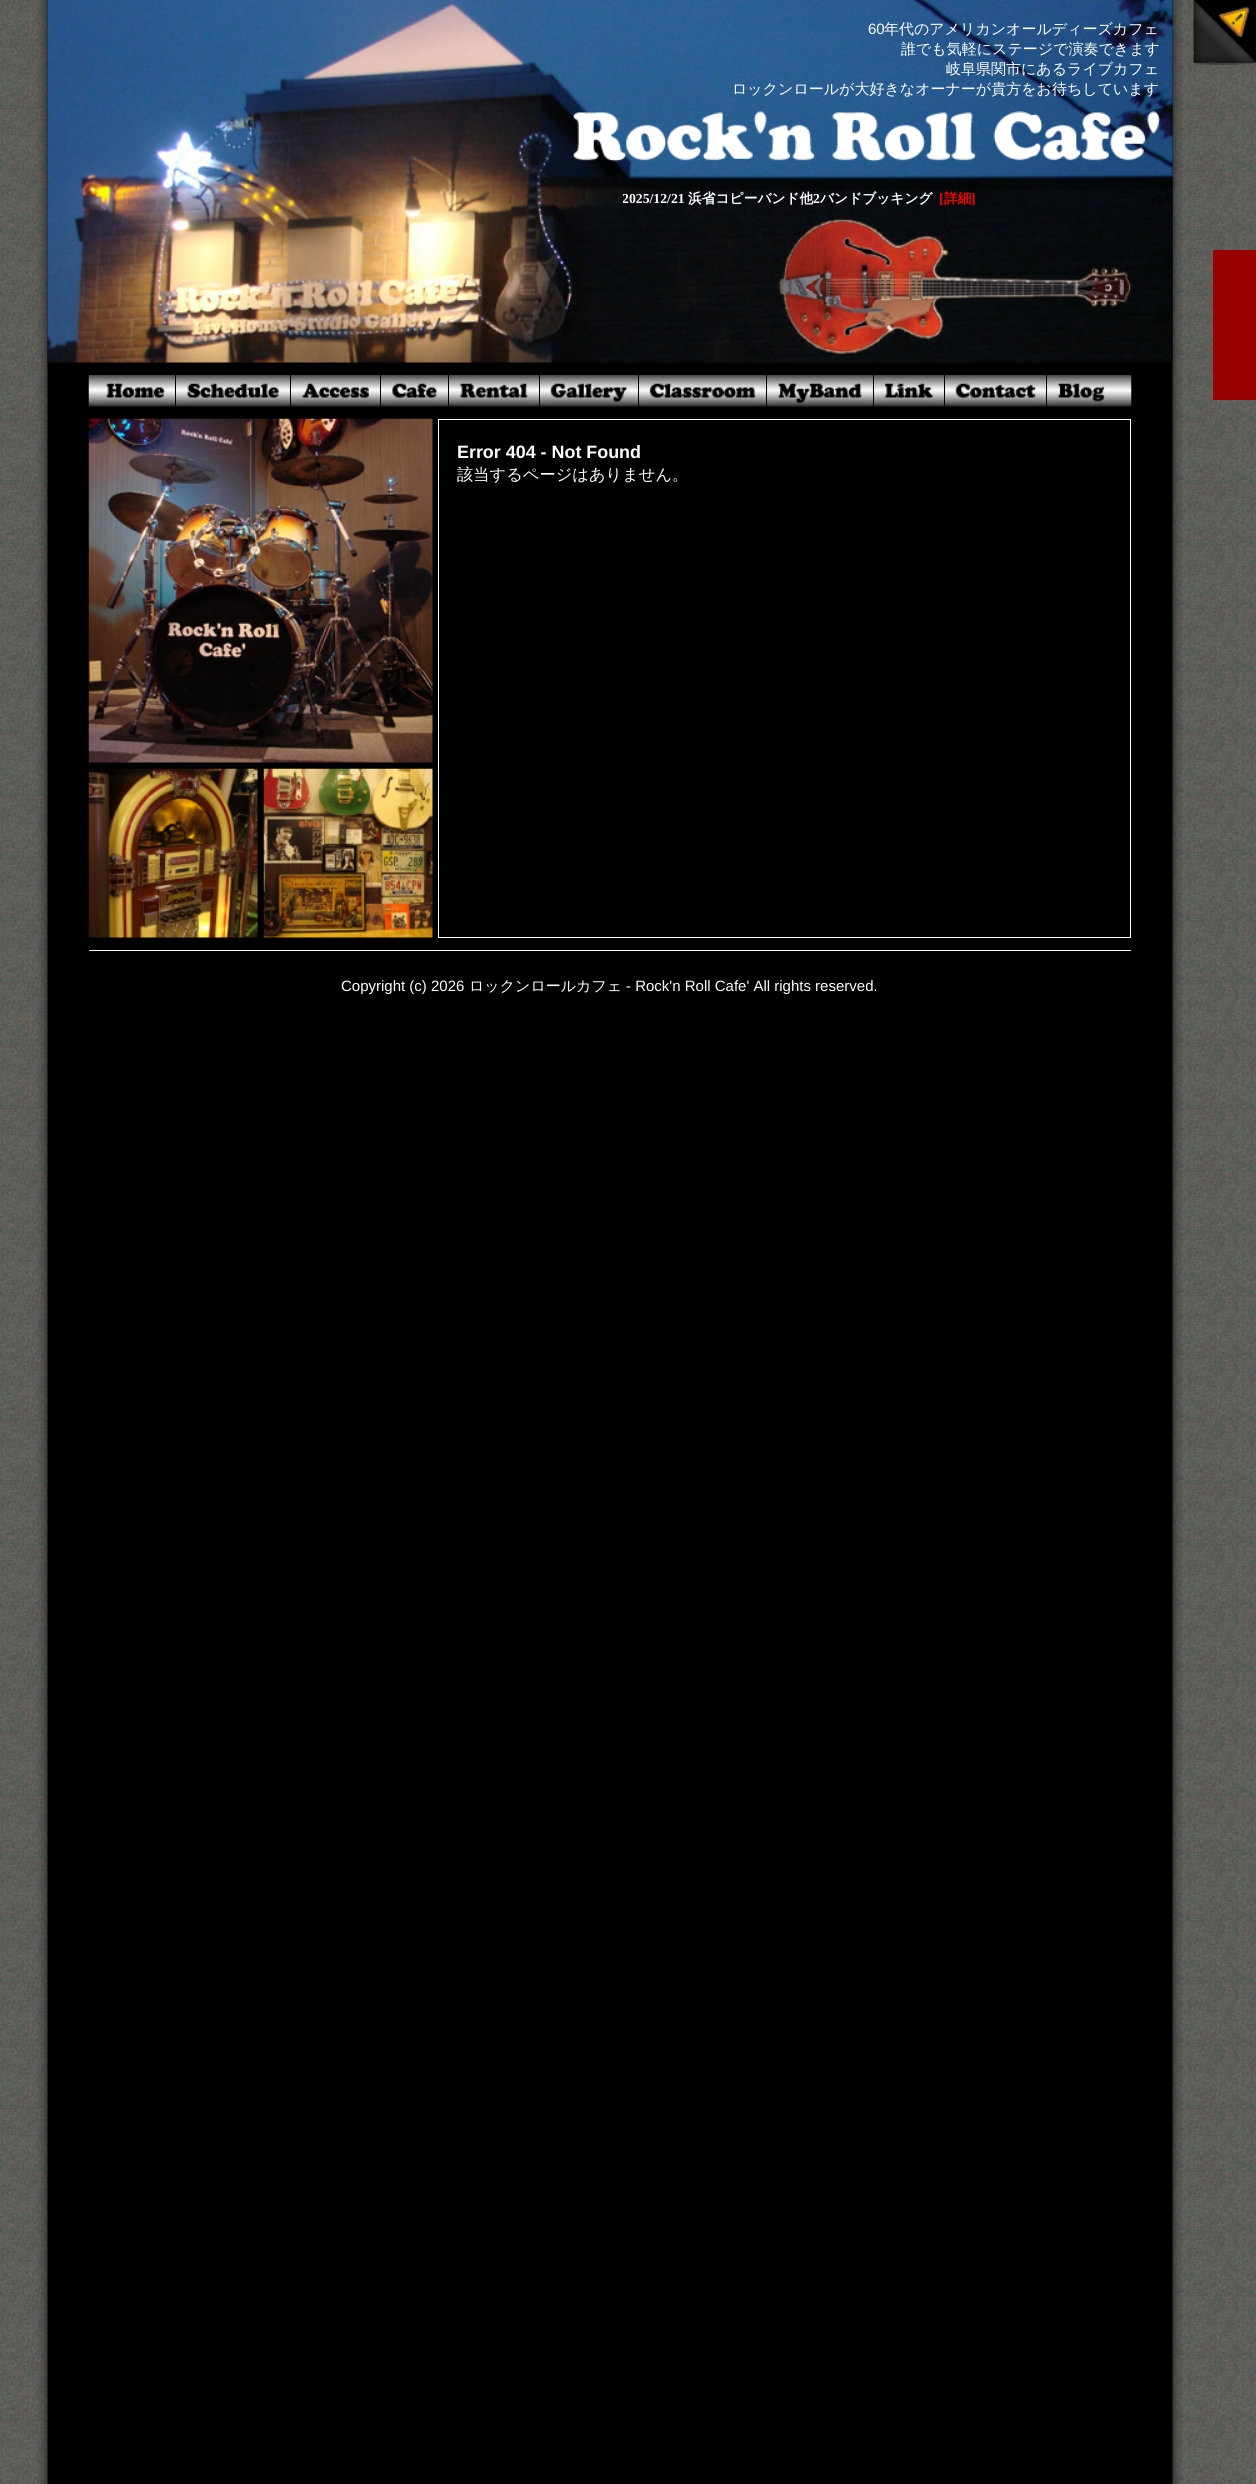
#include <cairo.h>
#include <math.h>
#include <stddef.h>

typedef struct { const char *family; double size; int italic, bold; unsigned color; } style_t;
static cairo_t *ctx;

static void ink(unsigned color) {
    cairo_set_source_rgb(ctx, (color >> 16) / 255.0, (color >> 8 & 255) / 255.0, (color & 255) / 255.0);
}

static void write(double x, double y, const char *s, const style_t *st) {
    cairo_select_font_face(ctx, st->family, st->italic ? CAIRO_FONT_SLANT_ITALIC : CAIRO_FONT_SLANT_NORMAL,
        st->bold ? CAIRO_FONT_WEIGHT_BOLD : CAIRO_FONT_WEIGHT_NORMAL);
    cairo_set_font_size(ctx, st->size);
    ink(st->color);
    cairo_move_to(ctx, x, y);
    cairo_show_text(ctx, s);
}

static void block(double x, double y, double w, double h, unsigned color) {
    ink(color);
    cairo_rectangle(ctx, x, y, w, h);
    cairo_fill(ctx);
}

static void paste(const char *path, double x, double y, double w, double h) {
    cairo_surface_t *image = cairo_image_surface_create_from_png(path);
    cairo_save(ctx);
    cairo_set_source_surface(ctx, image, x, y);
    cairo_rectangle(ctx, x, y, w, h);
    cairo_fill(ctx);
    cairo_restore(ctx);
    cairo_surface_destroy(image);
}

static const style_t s1 = {"Liberation Sans", 15, 0, 0, 0xffffff};
static const style_t s2 = {"WenQuanYi Zen Hei Medium", 15, 0, 0, 0xffffff};
static const style_t s3 = {"Liberation Serif", 13.75, 0, 1, 0xffffff};
static const style_t s4 = {"WenQuanYi Zen Hei", 13.75, 0, 1, 0xffffff};
static const style_t s5 = {"Liberation Serif", 13.75, 0, 1, 0xff0000};
static const style_t s6 = {"WenQuanYi Zen Hei", 13.75, 0, 1, 0xff0000};
static const style_t s7 = {"Liberation Sans", 17.9, 0, 1, 0xffffff};
static const style_t s8 = {"WenQuanYi Zen Hei Medium", 16.25, 0, 0, 0xffffff};

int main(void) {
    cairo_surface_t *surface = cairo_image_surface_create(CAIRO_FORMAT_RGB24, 1256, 2484);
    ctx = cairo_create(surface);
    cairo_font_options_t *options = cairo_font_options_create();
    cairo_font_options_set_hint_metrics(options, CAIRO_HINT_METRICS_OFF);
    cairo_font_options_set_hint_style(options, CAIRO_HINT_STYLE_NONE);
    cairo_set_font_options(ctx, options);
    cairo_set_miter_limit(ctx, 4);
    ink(0xffffff);
    cairo_paint(ctx);
    paste("pic1.png", 0, 0, 1256, 2484);
    paste("pic2.png", 37, 0, 1146, 2484);
    paste("pic3.png", 47, 0, 1126, 363);
    write(868, 34, "60", &s1);
    write(884, 34, "年代のアメリカンオールディーズカフェ", &s2);
    write(901, 54, "誰でも気軽にステージで演奏できます", &s2);
    write(946, 74, "岐阜県関市にあるライブカフェ", &s2);
    write(732, 94, "ロックンロールが大好きなオーナーが貴方をお待ちしています", &s2);
    paste("pic4.png", 573, 111, 587, 51);
    cairo_save(ctx);
    cairo_rectangle(ctx, 623, 189, 537, 19);
    cairo_clip(ctx);
    write(622, 203, "2025/12/21", &s3);
    cairo_restore(ctx);
    write(688, 203, "浜省コピーバンド他", &s4);
    write(813, 203, "2", &s3);
    write(820, 203, "バンドブッキング", &s4);
    write(939, 203, "[", &s5);
    write(944, 203, "詳細", &s6);
    write(971, 203, "]", &s5);
    paste("pic5.png", 88, 375, 1044, 32);
    block(175, 375, 1, 31, 0x000000);
    paste("pic6.png", 105, 383, 60, 24);
    block(290, 375, 1, 31, 0x000000);
    paste("pic7.png", 186, 383, 94, 24);
    block(380, 375, 1, 31, 0x000000);
    paste("pic8.png", 301, 383, 69, 24);
    block(448, 375, 1, 31, 0x000000);
    paste("pic9.png", 391, 383, 47, 24);
    block(539, 375, 1, 31, 0x000000);
    paste("pic10.png", 459, 383, 70, 24);
    block(638, 375, 1, 31, 0x000000);
    paste("pic11.png", 550, 383, 78, 24);
    block(766, 375, 1, 31, 0x000000);
    paste("pic12.png", 649, 383, 107, 24);
    block(873, 375, 1, 31, 0x000000);
    paste("pic13.png", 777, 383, 86, 24);
    block(944, 375, 1, 31, 0x000000);
    paste("pic14.png", 884, 383, 50, 24);
    block(1046, 375, 1, 31, 0x000000);
    paste("pic15.png", 955, 383, 82, 24);
    paste("pic16.png", 1057, 383, 48, 24);
    paste("pic17.png", 88, 418, 345, 520);
    cairo_rectangle(ctx, 438.5, 419.5, 692, 518);
    ink(0xffffff);
    cairo_set_line_width(ctx, 1);
    cairo_stroke(ctx);
    write(457, 458, "Error 404 - Not Found", &s7);
    write(457, 480, "該当するページはありません。", &s8);
    block(89, 950, 1042, 1, 0xffffff);
    write(341, 991, "Copyright (c) 2026", &s1);
    write(469, 991, "ロックンロールカフェ", &s2);
    write(626, 991, "- Rock'n Roll Cafe' All rights reserved.", &s1);
    paste("pic18.png", 1193, 0, 63, 63);
    paste("pic19.png", 1193, 0, 63, 65);
    block(1213, 250, 43, 150, 0x990000);
    cairo_surface_write_to_png(surface, "screenshot.png");
    cairo_font_options_destroy(options);
    cairo_destroy(ctx);
    cairo_surface_destroy(surface);
    return 0;
}
